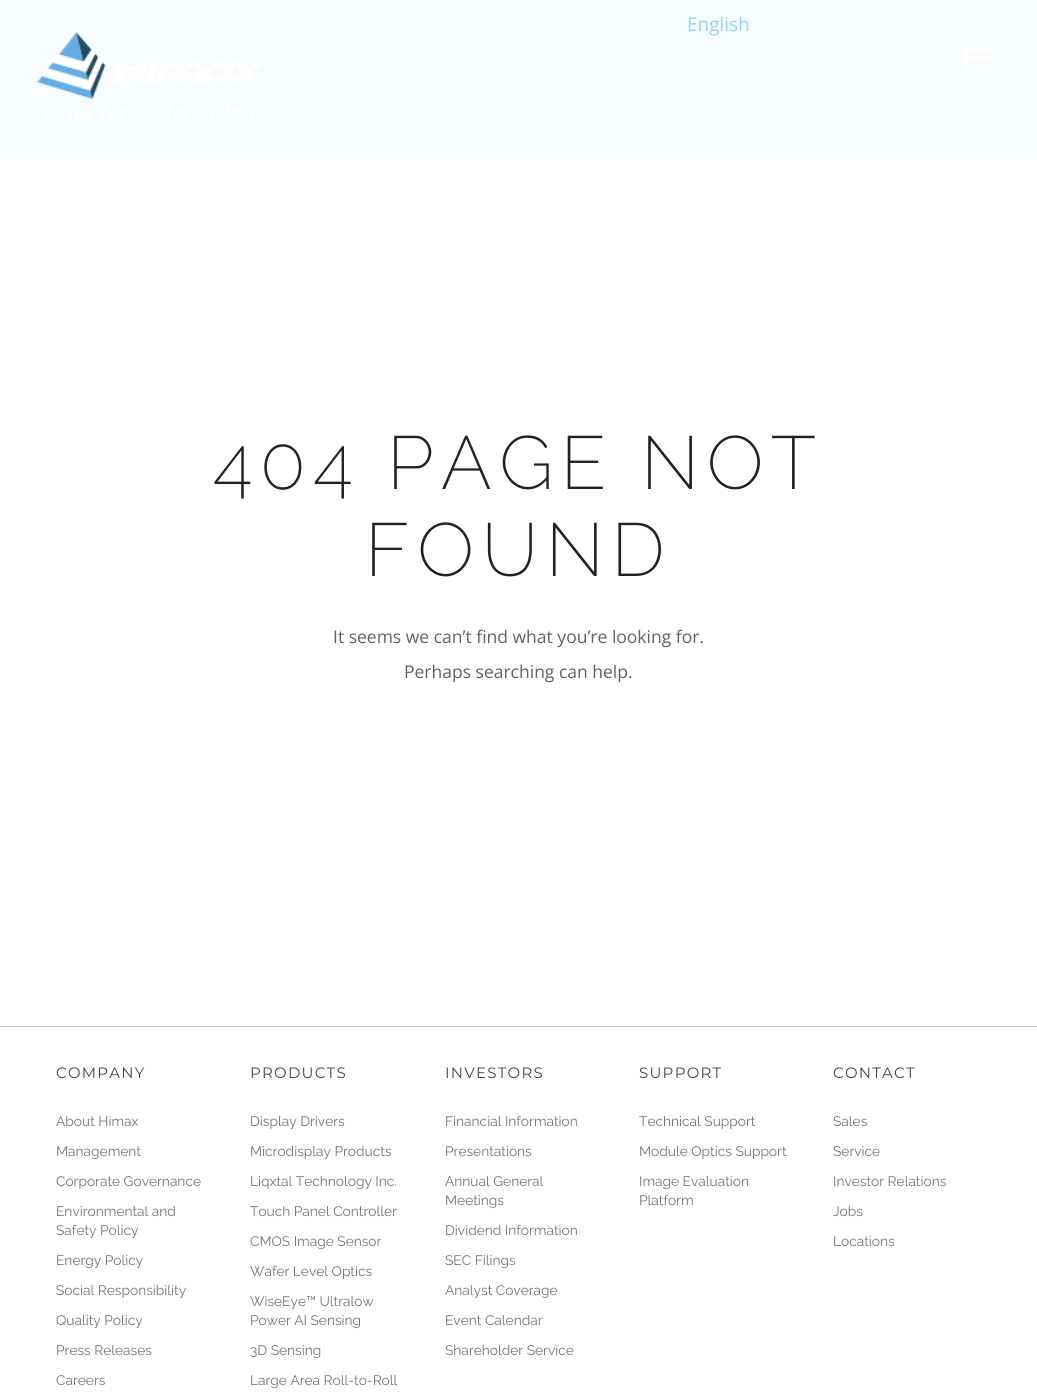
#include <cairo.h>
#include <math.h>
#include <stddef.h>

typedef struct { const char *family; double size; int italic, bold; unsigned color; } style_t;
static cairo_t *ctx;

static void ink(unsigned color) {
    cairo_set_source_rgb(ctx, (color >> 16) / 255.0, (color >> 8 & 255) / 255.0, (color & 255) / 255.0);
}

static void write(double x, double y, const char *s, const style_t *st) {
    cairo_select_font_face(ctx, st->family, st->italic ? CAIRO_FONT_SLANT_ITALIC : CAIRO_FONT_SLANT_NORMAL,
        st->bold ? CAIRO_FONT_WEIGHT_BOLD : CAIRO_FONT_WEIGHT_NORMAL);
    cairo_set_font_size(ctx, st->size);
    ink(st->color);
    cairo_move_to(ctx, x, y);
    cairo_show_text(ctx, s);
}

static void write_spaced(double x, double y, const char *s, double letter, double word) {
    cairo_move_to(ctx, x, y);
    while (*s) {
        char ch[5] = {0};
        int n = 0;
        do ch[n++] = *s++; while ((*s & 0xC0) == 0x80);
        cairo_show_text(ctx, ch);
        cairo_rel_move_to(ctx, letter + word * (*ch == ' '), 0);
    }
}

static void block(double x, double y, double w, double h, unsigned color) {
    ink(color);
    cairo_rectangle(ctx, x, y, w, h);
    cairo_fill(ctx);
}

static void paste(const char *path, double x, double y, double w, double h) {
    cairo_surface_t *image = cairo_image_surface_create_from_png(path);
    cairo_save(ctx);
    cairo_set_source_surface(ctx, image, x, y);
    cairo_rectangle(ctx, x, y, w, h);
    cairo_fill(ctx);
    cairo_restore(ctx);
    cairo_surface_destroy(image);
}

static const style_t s1 = {"Open Sans", 19, 0, 0, 0x91d3ff};
static const style_t s2 = {"Open Sans", 17.5, 0, 0, 0x5f6263};
static const style_t s3 = {"Raleway", 13.75, 0, 0, 0x757575};

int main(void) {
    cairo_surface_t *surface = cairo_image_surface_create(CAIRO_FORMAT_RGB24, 1037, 1396);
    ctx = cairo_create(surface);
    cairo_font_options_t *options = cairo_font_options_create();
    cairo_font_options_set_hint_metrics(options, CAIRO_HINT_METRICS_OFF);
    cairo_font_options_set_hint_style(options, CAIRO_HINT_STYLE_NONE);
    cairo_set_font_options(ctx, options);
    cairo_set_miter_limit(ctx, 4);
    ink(0xffffff);
    cairo_paint(ctx);
    block(0, 0, 1037, 156, 0xf9fcff);
    write(687, 31, "English", &s1);
    paste("pic1.png", 37, 32, 224, 93);
    block(965, 48, 35, 5, 0xffffff);
    block(965, 56, 35, 5, 0xffffff);
    block(965, 66, 35, 5, 0xffffff);
    cairo_select_font_face(ctx, "Raleway ExtraLight", CAIRO_FONT_SLANT_NORMAL, CAIRO_FONT_WEIGHT_NORMAL);
    cairo_set_font_size(ctx, 75);
    ink(0x222222);
    write_spaced(213, 489, "404 PAGE NOT", 7.5, 0);
    write_spaced(365, 576, "FOUND", 7.5, 0);
    write(333, 643, "It seems we can’t find what you’re looking for.", &s2);
    write(404, 678, "Perhaps searching can help.", &s2);
    block(0, 1026, 1037, 1, 0xc2c2c2);
    cairo_select_font_face(ctx, "Montserrat Thin", CAIRO_FONT_SLANT_NORMAL, CAIRO_FONT_WEIGHT_NORMAL);
    cairo_set_font_size(ctx, 15);
    ink(0x474747);
    write_spaced(56, 1078, "COMPANY", 1.25, 0);
    write(56, 1126, "About Himax", &s3);
    write(56, 1156, "Management", &s3);
    write(56, 1186, "Corporate Governance", &s3);
    write(56, 1216, "Environmental and", &s3);
    write(56, 1235, "Safety Policy", &s3);
    write(56, 1265, "Energy Policy", &s3);
    write(56, 1295, "Social Responsibility", &s3);
    write(56, 1325, "Quality Policy", &s3);
    write(56, 1355, "Press Releases", &s3);
    write(56, 1385, "Careers", &s3);
    cairo_select_font_face(ctx, "Montserrat Thin", CAIRO_FONT_SLANT_NORMAL, CAIRO_FONT_WEIGHT_NORMAL);
    cairo_set_font_size(ctx, 15);
    ink(0x474747);
    write_spaced(250, 1078, "PRODUCTS", 1.25, 0);
    write(250, 1126, "Display Drivers", &s3);
    write(250, 1156, "Microdisplay Products", &s3);
    write(250, 1186, "Liqxtal Technology Inc.", &s3);
    write(250, 1216, "Touch Panel Controller", &s3);
    write(250, 1246, "CMOS Image Sensor", &s3);
    write(250, 1276, "Wafer Level Optics", &s3);
    write(250, 1306, "WiseEye™ Ultralow", &s3);
    write(250, 1325, "Power AI Sensing", &s3);
    write(250, 1355, "3D Sensing", &s3);
    write(250, 1385, "Large Area Roll-to-Roll", &s3);
    cairo_select_font_face(ctx, "Montserrat Thin", CAIRO_FONT_SLANT_NORMAL, CAIRO_FONT_WEIGHT_NORMAL);
    cairo_set_font_size(ctx, 15);
    ink(0x474747);
    write_spaced(445, 1078, "INVESTORS", 1.25, 0);
    write(445, 1126, "Financial Information", &s3);
    write(445, 1156, "Presentations", &s3);
    write(445, 1186, "Annual General", &s3);
    write(445, 1205, "Meetings", &s3);
    write(445, 1235, "Dividend Information", &s3);
    write(445, 1265, "SEC Filings", &s3);
    write(445, 1295, "Analyst Coverage", &s3);
    write(445, 1325, "Event Calendar", &s3);
    write(445, 1355, "Shareholder Service", &s3);
    cairo_select_font_face(ctx, "Montserrat Thin", CAIRO_FONT_SLANT_NORMAL, CAIRO_FONT_WEIGHT_NORMAL);
    cairo_set_font_size(ctx, 15);
    ink(0x474747);
    write_spaced(639, 1078, "SUPPORT", 1.25, 0);
    write(639, 1126, "Technical Support", &s3);
    write(639, 1156, "Module Optics Support", &s3);
    write(639, 1186, "Image Evaluation", &s3);
    write(639, 1205, "Platform", &s3);
    cairo_select_font_face(ctx, "Montserrat Thin", CAIRO_FONT_SLANT_NORMAL, CAIRO_FONT_WEIGHT_NORMAL);
    cairo_set_font_size(ctx, 15);
    ink(0x474747);
    write_spaced(833, 1078, "CONTACT", 1.25, 0);
    write(833, 1126, "Sales", &s3);
    write(833, 1156, "Service", &s3);
    write(833, 1186, "Investor Relations", &s3);
    write(833, 1216, "Jobs", &s3);
    write(833, 1246, "Locations", &s3);
    cairo_surface_write_to_png(surface, "screenshot.png");
    cairo_font_options_destroy(options);
    cairo_destroy(ctx);
    cairo_surface_destroy(surface);
    return 0;
}
